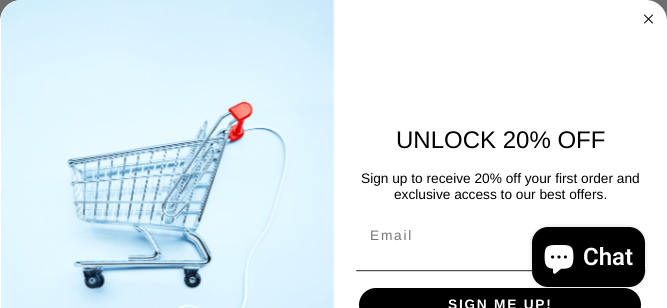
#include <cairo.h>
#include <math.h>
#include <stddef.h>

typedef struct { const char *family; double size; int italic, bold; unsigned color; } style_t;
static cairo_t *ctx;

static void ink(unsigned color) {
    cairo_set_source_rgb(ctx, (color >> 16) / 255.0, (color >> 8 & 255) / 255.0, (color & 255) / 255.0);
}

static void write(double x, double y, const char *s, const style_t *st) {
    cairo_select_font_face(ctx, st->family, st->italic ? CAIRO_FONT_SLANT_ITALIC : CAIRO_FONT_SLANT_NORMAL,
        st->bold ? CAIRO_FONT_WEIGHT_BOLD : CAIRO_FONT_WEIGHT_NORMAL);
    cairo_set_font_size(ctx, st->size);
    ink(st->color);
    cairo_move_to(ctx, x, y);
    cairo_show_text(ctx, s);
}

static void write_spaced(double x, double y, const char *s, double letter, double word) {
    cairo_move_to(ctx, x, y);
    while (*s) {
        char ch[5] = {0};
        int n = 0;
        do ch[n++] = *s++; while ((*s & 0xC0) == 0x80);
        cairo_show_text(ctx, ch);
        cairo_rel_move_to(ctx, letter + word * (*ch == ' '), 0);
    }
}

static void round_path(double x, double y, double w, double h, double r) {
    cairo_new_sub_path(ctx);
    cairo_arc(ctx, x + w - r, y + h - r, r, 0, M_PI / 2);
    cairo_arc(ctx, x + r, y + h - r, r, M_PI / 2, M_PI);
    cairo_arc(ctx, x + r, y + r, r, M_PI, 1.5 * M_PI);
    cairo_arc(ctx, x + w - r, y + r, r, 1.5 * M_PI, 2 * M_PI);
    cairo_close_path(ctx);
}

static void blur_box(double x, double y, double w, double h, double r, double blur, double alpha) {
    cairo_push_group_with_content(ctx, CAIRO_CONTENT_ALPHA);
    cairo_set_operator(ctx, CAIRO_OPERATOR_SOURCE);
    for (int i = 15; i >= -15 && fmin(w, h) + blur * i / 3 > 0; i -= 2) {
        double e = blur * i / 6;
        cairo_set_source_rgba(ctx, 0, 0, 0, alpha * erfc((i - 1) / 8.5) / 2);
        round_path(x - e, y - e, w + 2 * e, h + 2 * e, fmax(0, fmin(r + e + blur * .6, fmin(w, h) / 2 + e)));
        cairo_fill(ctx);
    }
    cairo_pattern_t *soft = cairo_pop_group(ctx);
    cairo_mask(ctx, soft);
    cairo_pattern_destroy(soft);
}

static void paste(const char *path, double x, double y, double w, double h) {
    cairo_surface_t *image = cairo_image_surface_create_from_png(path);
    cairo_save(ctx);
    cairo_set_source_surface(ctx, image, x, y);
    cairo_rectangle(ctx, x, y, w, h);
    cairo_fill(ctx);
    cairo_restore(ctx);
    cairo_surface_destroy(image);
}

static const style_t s1 = {"Liberation Sans", 24, 0, 0, 0x000000};
static const style_t s2 = {"Liberation Sans", 13.7, 0, 0, 0x000000};
static const style_t s3 = {"Roboto SemiBold", 24, 0, 0, 0xffffff};

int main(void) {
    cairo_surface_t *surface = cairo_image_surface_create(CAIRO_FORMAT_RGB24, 667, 308);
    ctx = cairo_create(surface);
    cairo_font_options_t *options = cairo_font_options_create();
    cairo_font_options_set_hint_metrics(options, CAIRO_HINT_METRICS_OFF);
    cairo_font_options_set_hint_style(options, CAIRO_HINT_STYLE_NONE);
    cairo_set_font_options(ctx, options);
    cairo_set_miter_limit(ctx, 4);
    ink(0x727272);
    cairo_paint(ctx);
    ink(0x000000);
    blur_box(0, 0, 667, 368, 21, 13, 0.15);
    ink(0xffffff);
    cairo_new_path(ctx);
    cairo_move_to(ctx, 21, 0);
    cairo_line_to(ctx, 646, 0);
    cairo_curve_to(ctx, 657.5, 0, 667, 9.5, 667, 21);
    cairo_line_to(ctx, 667, 308);
    cairo_line_to(ctx, 0, 308);
    cairo_line_to(ctx, 0, 21);
    cairo_curve_to(ctx, 0, 9.5, 9.5, 0, 21, 0);
    cairo_close_path(ctx);
    cairo_fill(ctx);
    cairo_new_path(ctx);
    cairo_move_to(ctx, 644.5, 15);
    cairo_line_to(ctx, 652.5, 23);
    cairo_move_to(ctx, 644.5, 23);
    cairo_line_to(ctx, 652.5, 15);
    cairo_close_path(ctx);
    ink(0x000000);
    cairo_set_line_width(ctx, 1);
    cairo_set_line_cap(ctx, CAIRO_LINE_CAP_ROUND);
    cairo_set_line_join(ctx, CAIRO_LINE_JOIN_ROUND);
    cairo_stroke(ctx);
    paste("pic1.png", 1, 0, 334, 308);
    write(396, 148, "UNLOCK 20% OFF", &s1);
    write(361, 183, "Sign up to receive 20% off your first order and", &s2);
    write(394, 199, "exclusive access to our best offers.", &s2);
    ink(0x767676);
    write_spaced(370, 240, "Email", 1.75, 0);
    paste("pic2.png", 356, 270, 290, 2);
    ink(0x000000);
    round_path(359, 288, 282, 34, 17);
    cairo_fill(ctx);
    cairo_select_font_face(ctx, "Liberation Sans", CAIRO_FONT_SLANT_NORMAL, CAIRO_FONT_WEIGHT_BOLD);
    ink(0xffffff);
    write_spaced(448, 309, "SIGN ME UP!", 1.75, 0);
    ink(0x000000);
    blur_box(532, 227, 113, 60, 16, 2.5, 0.15);
    ink(0x000000);
    round_path(532, 227, 113, 60, 16);
    cairo_fill(ctx);
    paste("pic3.png", 544, 245, 30, 29);
    write(583, 265, "Chat", &s3);
    cairo_surface_write_to_png(surface, "screenshot.png");
    cairo_font_options_destroy(options);
    cairo_destroy(ctx);
    cairo_surface_destroy(surface);
    return 0;
}
